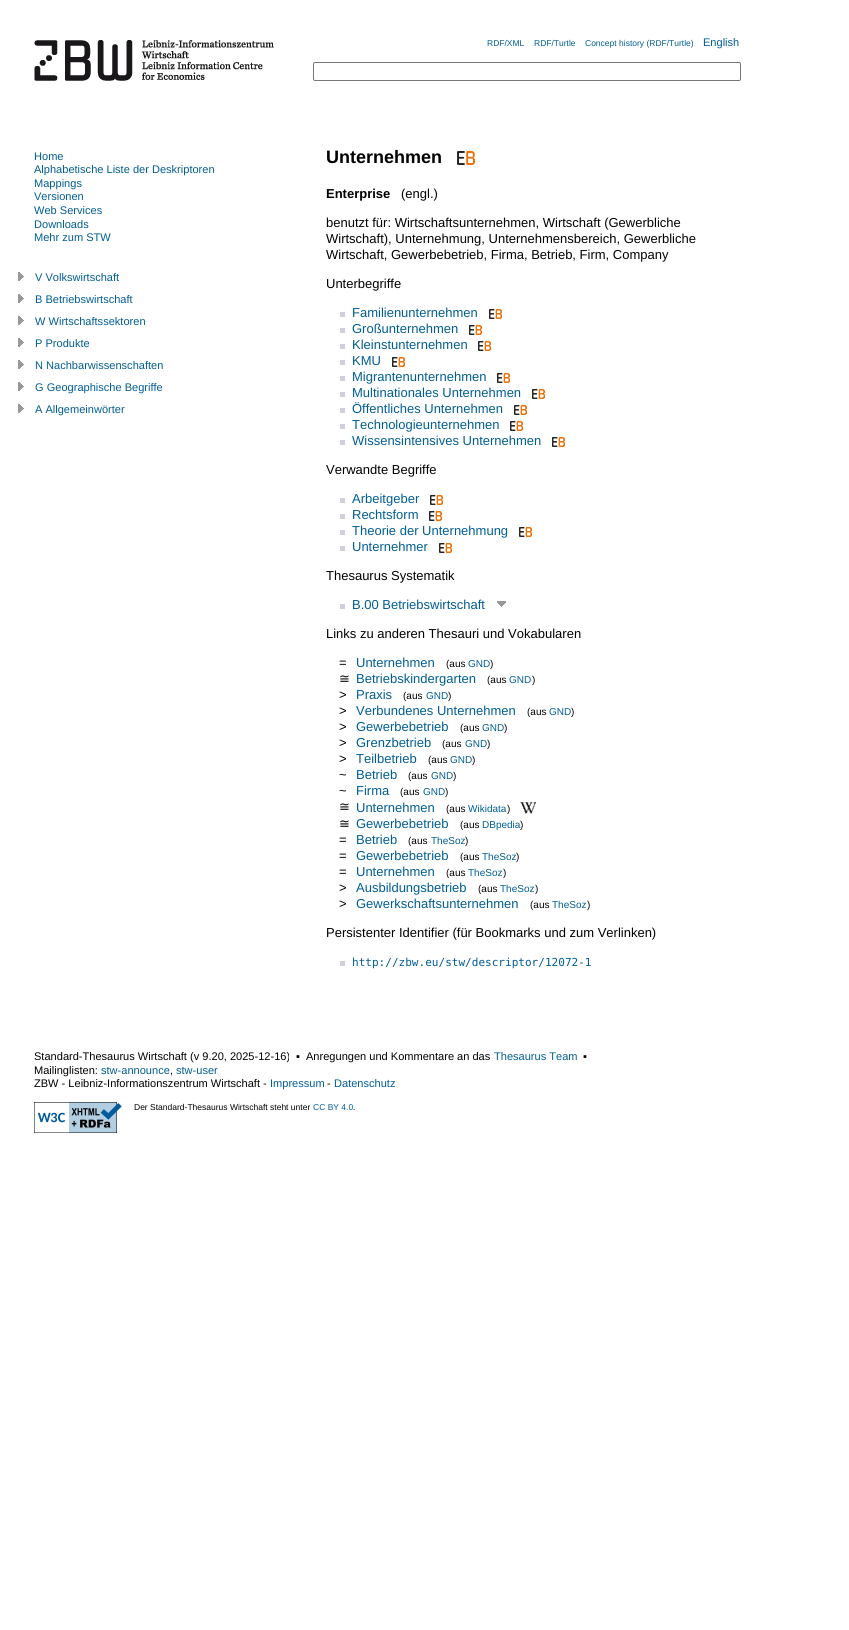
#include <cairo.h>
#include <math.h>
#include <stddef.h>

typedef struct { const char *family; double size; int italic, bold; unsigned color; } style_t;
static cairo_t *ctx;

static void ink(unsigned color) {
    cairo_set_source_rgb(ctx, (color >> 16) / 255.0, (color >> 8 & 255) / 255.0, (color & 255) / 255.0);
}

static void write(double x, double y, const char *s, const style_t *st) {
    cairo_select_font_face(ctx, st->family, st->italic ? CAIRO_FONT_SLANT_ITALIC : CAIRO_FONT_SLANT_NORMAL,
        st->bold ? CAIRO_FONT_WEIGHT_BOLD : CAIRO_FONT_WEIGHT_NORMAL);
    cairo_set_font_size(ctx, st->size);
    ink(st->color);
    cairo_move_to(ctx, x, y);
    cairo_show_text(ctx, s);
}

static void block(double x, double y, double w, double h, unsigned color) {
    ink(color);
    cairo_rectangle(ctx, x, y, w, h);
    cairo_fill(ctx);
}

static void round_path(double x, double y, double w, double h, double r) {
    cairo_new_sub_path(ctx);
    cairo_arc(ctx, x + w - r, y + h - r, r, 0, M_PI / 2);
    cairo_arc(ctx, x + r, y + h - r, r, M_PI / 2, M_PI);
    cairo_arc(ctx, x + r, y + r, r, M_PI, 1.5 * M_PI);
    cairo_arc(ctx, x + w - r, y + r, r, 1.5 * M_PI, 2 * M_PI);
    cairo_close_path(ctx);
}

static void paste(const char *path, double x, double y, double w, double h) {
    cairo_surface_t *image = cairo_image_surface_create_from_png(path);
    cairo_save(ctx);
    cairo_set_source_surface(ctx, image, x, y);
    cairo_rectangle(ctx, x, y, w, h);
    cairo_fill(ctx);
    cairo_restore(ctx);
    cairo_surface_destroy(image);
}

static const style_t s1 = {"Liberation Sans", 8.5, 0, 0, 0x005d95};
static const style_t s2 = {"Liberation Sans", 11.05, 0, 0, 0x005d95};
static const style_t s3 = {"Liberation Sans", 18, 0, 1, 0x000000};
static const style_t s4 = {"Liberation Sans", 13, 0, 1, 0x000000};
static const style_t s5 = {"Liberation Sans", 13, 0, 0, 0x000000};
static const style_t s6 = {"Liberation Sans", 13, 0, 0, 0x005d95};
static const style_t s7 = {"Liberation Sans", 10, 0, 0, 0x000000};
static const style_t s8 = {"Liberation Sans", 10, 0, 0, 0x005d95};
static const style_t s9 = {"DejaVu Sans", 13, 0, 0, 0x000000};
static const style_t s10 = {"DejaVu Sans Mono", 11.05, 0, 0, 0x005d95};
static const style_t s11 = {"Liberation Sans", 11.05, 0, 0, 0x000000};
static const style_t s12 = {"Liberation Sans", 8.5, 0, 0, 0x000000};

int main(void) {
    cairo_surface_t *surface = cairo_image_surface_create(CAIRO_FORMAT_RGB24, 849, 1630);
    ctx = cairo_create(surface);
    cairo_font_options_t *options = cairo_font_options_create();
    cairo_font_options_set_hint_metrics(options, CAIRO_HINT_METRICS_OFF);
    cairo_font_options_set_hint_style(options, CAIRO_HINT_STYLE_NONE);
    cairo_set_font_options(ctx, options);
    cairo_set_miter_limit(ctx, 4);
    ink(0xffffff);
    cairo_paint(ctx);
    paste("pic1.png", 34, 40, 240, 41);
    write(487, 46, "RDF/XML", &s1);
    write(534, 46, "RDF/Turtle", &s1);
    write(585, 46, "Concept history (RDF/Turtle)", &s1);
    write(703, 46, "English", &s2);
    round_path(313.5, 62.5, 427, 18, 1.5);
    ink(0x767676);
    cairo_set_line_width(ctx, 1);
    cairo_stroke(ctx);
    write(34, 160, "Home", &s2);
    write(34, 173, "Alphabetische Liste der Deskriptoren", &s2);
    write(34, 187, "Mappings", &s2);
    write(34, 200, "Versionen", &s2);
    write(34, 214, "Web Services", &s2);
    write(34, 228, "Downloads", &s2);
    write(34, 241, "Mehr zum STW", &s2);
    paste("pic2.png", 18, 272, 6, 9);
    write(35, 281, "V Volkswirtschaft", &s2);
    paste("pic2.png", 18, 294, 6, 9);
    write(35, 303, "B Betriebswirtschaft", &s2);
    paste("pic2.png", 18, 316, 6, 9);
    write(35, 325, "W Wirtschaftssektoren", &s2);
    paste("pic2.png", 18, 338, 6, 9);
    write(35, 347, "P Produkte", &s2);
    paste("pic2.png", 18, 360, 6, 9);
    write(35, 369, "N Nachbarwissenschaften", &s2);
    paste("pic2.png", 18, 382, 6, 9);
    write(35, 391, "G Geographische Begriffe", &s2);
    paste("pic2.png", 18, 404, 6, 9);
    write(35, 413, "A Allgemeinwörter", &s2);
    write(326, 163, "Unternehmen", &s3);
    paste("pic3.png", 457, 151, 18, 14);
    write(326, 198, "Enterprise", &s4);
    write(401, 198, "(engl.)", &s5);
    write(326, 227, "benutzt für: Wirtschaftsunternehmen, Wirtschaft (Gewerbliche", &s5);
    write(326, 243, "Wirtschaft), Unternehmung, Unternehmensbereich, Gewerbliche", &s5);
    write(326, 259, "Wirtschaft, Gewerbebetrieb, Firma, Betrieb, Firm, Company", &s5);
    write(326, 288, "Unterbegriffe", &s5);
    block(340, 312, 5, 5, 0xd1cfdd);
    write(352, 317, "Familienunternehmen", &s6);
    paste("pic4.png", 489, 309, 13, 10);
    block(340, 328, 5, 5, 0xd1cfdd);
    write(352, 333, "Großunternehmen", &s6);
    paste("pic4.png", 469, 325, 13, 10);
    block(340, 344, 5, 5, 0xd1cfdd);
    write(352, 349, "Kleinstunternehmen", &s6);
    paste("pic4.png", 478, 341, 13, 10);
    block(340, 360, 5, 5, 0xd1cfdd);
    write(352, 365, "KMU", &s6);
    paste("pic4.png", 392, 357, 13, 10);
    block(340, 376, 5, 5, 0xd1cfdd);
    write(352, 381, "Migrantenunternehmen", &s6);
    paste("pic4.png", 497, 373, 13, 10);
    block(340, 392, 5, 5, 0xd1cfdd);
    write(352, 397, "Multinationales Unternehmen", &s6);
    paste("pic4.png", 532, 389, 13, 10);
    block(340, 408, 5, 5, 0xd1cfdd);
    write(352, 413, "Öffentliches Unternehmen", &s6);
    paste("pic4.png", 514, 405, 13, 10);
    block(340, 424, 5, 5, 0xd1cfdd);
    write(352, 429, "Technologieunternehmen", &s6);
    paste("pic4.png", 510, 421, 13, 10);
    block(340, 440, 5, 5, 0xd1cfdd);
    write(352, 445, "Wissensintensives Unternehmen", &s6);
    paste("pic4.png", 552, 437, 13, 10);
    write(326, 474, "Verwandte Begriffe", &s5);
    block(340, 498, 5, 5, 0xd1cfdd);
    write(352, 503, "Arbeitgeber", &s6);
    paste("pic4.png", 430, 495, 13, 10);
    block(340, 514, 5, 5, 0xd1cfdd);
    write(352, 519, "Rechtsform", &s6);
    paste("pic4.png", 429, 511, 13, 10);
    block(340, 530, 5, 5, 0xd1cfdd);
    write(352, 535, "Theorie der Unternehmung", &s6);
    paste("pic4.png", 519, 527, 13, 10);
    block(340, 546, 5, 5, 0xd1cfdd);
    write(352, 551, "Unternehmer", &s6);
    paste("pic4.png", 439, 543, 13, 10);
    write(326, 580, "Thesaurus Systematik", &s5);
    block(340, 604, 5, 5, 0xd1cfdd);
    write(352, 609, "B.00 Betriebswirtschaft", &s6);
    paste("pic5.png", 497, 601, 9, 6);
    write(326, 638, "Links zu anderen Thesauri und Vokabularen", &s5);
    write(339, 667, "=", &s5);
    write(356, 667, "Unternehmen", &s6);
    write(446, 667, "(aus", &s7);
    write(468, 667, "GND", &s8);
    write(490, 667, ")", &s7);
    write(339, 683, "≅", &s9);
    write(356, 683, "Betriebskindergarten", &s6);
    write(487, 683, "(aus", &s7);
    write(509, 683, "GND", &s8);
    write(532, 683, ")", &s7);
    write(339, 699, ">", &s5);
    write(356, 699, "Praxis", &s6);
    write(403, 699, "(aus", &s7);
    write(426, 699, "GND", &s8);
    write(448, 699, ")", &s7);
    write(339, 715, ">", &s5);
    write(356, 715, "Verbundenes Unternehmen", &s6);
    write(527, 715, "(aus", &s7);
    write(549, 715, "GND", &s8);
    write(571, 715, ")", &s7);
    write(339, 731, ">", &s5);
    write(356, 731, "Gewerbebetrieb", &s6);
    write(460, 731, "(aus", &s7);
    write(482, 731, "GND", &s8);
    write(504, 731, ")", &s7);
    write(339, 747, ">", &s5);
    write(356, 747, "Grenzbetrieb", &s6);
    write(442, 747, "(aus", &s7);
    write(465, 747, "GND", &s8);
    write(487, 747, ")", &s7);
    write(339, 763, ">", &s5);
    write(356, 763, "Teilbetrieb", &s6);
    write(428, 763, "(aus", &s7);
    write(450, 763, "GND", &s8);
    write(472, 763, ")", &s7);
    write(339, 779, "~", &s5);
    write(356, 779, "Betrieb", &s6);
    write(408, 779, "(aus", &s7);
    write(431, 779, "GND", &s8);
    write(453, 779, ")", &s7);
    write(339, 795, "~", &s5);
    write(356, 795, "Firma", &s6);
    write(400, 795, "(aus", &s7);
    write(423, 795, "GND", &s8);
    write(445, 795, ")", &s7);
    write(339, 811, "≅", &s9);
    write(356, 812, "Unternehmen", &s6);
    write(446, 812, "(aus", &s7);
    write(468, 812, "Wikidata", &s8);
    write(507, 812, ")", &s7);
    paste("pic6.png", 520, 802, 16, 12);
    write(339, 828, "≅", &s9);
    write(356, 828, "Gewerbebetrieb", &s6);
    write(460, 828, "(aus", &s7);
    write(482, 828, "DBpedia", &s8);
    write(520, 828, ")", &s7);
    write(339, 844, "=", &s5);
    write(356, 844, "Betrieb", &s6);
    write(408, 844, "(aus", &s7);
    write(431, 844, "TheSoz", &s8);
    write(465, 844, ")", &s7);
    write(339, 860, "=", &s5);
    write(356, 860, "Gewerbebetrieb", &s6);
    write(460, 860, "(aus", &s7);
    write(482, 860, "TheSoz", &s8);
    write(516, 860, ")", &s7);
    write(339, 876, "=", &s5);
    write(356, 876, "Unternehmen", &s6);
    write(446, 876, "(aus", &s7);
    write(468, 876, "TheSoz", &s8);
    write(503, 876, ")", &s7);
    write(339, 892, ">", &s5);
    write(356, 892, "Ausbildungsbetrieb", &s6);
    write(478, 892, "(aus", &s7);
    write(500, 892, "TheSoz", &s8);
    write(535, 892, ")", &s7);
    write(339, 908, ">", &s5);
    write(356, 908, "Gewerkschaftsunternehmen", &s6);
    write(530, 908, "(aus", &s7);
    write(552, 908, "TheSoz", &s8);
    write(587, 908, ")", &s7);
    write(326, 937, "Persistenter Identifier (für Bookmarks und zum Verlinken)", &s5);
    block(340, 961, 5, 5, 0xd1cfdd);
    write(352, 966, "http://zbw.eu/stw/descriptor/12072-1", &s10);
    write(34, 1060, "Standard-Thesaurus Wirtschaft (v 9.20, 2025-12-16)", &s11);
    write(296, 1060, "▪", &s11);
    write(306, 1060, "Anregungen und Kommentare an das", &s11);
    write(494, 1060, "Thesaurus Team", &s2);
    write(583, 1060, "▪", &s11);
    write(34, 1074, "Mailinglisten:", &s11);
    write(101, 1074, "stw-announce", &s2);
    write(170, 1074, ",", &s11);
    write(176, 1074, "stw-user", &s2);
    write(34, 1087, "ZBW - Leibniz-Informationszentrum Wirtschaft -", &s11);
    write(270, 1087, "Impressum", &s2);
    write(327, 1087, "-", &s11);
    write(334, 1087, "Datenschutz", &s2);
    paste("pic7.png", 34, 1102, 88, 31);
    write(134, 1110, "Der Standard-Thesaurus Wirtschaft steht unter", &s12);
    write(313, 1110, "CC BY 4.0", &s1);
    write(353, 1110, ".", &s12);
    cairo_surface_write_to_png(surface, "screenshot.png");
    cairo_font_options_destroy(options);
    cairo_destroy(ctx);
    cairo_surface_destroy(surface);
    return 0;
}
